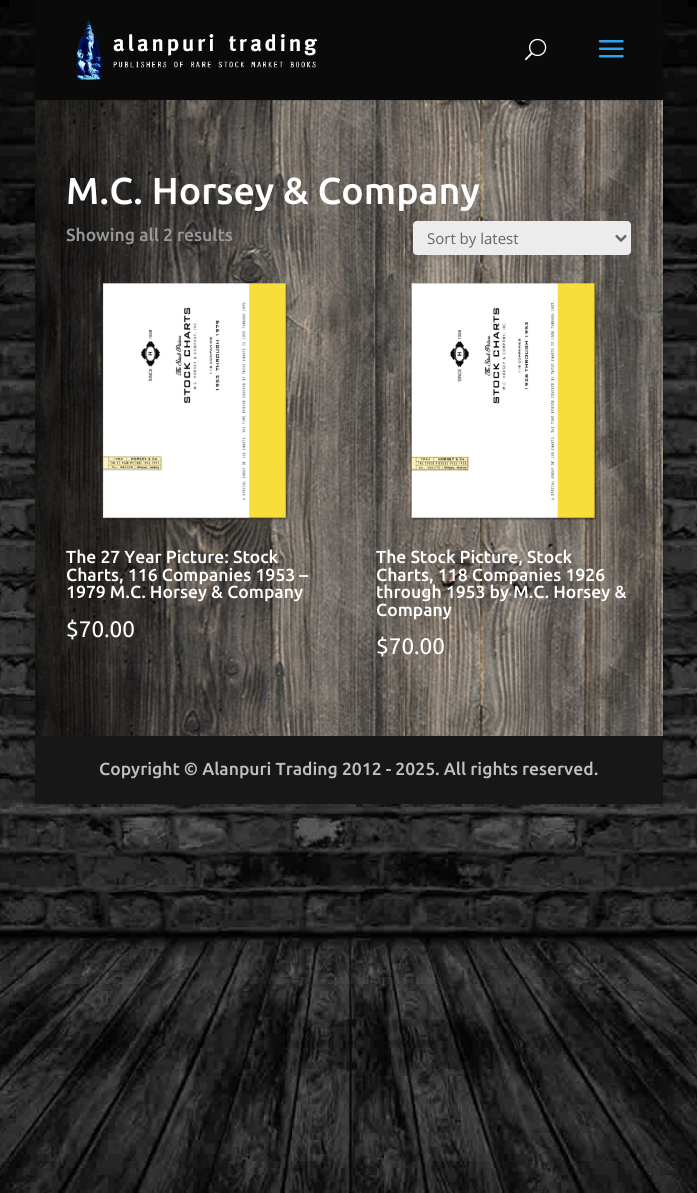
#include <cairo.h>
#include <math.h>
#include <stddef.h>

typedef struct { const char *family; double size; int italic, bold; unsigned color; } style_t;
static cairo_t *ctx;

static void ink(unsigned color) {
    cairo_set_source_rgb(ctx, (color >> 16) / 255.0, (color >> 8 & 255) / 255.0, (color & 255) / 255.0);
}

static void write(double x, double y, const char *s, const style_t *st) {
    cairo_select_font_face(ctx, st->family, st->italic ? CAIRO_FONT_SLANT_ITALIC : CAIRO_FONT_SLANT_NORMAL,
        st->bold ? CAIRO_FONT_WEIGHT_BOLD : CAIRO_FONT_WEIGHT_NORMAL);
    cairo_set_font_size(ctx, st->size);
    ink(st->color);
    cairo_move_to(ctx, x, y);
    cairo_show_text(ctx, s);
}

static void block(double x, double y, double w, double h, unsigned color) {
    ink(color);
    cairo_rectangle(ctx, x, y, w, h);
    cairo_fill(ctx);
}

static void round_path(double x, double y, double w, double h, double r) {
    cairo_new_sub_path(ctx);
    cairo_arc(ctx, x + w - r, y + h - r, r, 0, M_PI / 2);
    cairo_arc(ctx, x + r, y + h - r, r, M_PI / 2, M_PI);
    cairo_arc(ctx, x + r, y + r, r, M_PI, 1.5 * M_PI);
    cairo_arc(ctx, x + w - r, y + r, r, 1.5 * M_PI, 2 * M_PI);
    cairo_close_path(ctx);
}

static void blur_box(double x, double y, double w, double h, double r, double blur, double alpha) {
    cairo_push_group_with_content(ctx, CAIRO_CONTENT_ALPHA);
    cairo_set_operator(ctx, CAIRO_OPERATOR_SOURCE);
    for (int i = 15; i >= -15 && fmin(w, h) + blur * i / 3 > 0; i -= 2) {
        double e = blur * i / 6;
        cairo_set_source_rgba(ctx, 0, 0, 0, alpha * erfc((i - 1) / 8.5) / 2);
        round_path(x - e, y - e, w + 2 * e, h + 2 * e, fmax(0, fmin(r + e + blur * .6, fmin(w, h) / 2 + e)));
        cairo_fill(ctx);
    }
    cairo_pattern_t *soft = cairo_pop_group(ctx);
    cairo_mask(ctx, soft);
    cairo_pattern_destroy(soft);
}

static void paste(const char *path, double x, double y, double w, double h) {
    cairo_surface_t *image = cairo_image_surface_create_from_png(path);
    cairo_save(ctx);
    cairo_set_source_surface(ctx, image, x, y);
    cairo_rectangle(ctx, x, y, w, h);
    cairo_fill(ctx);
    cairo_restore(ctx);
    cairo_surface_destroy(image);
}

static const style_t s1 = {"Ubuntu Medium", 37.5, 0, 0, 0xffffff};
static const style_t s2 = {"Ubuntu Medium", 17.5, 0, 0, 0x999999};
static const style_t s3 = {"Open Sans", 15, 0, 0, 0x666666};
static const style_t s4 = {"Ubuntu Medium", 17.5, 0, 0, 0xffffff};
static const style_t s5 = {"Ubuntu", 22.5, 0, 0, 0xffffff};
static const style_t s6 = {"Ubuntu Medium", 17.5, 0, 0, 0xc1c1c1};

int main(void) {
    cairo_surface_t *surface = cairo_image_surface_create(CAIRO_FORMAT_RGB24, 697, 1193);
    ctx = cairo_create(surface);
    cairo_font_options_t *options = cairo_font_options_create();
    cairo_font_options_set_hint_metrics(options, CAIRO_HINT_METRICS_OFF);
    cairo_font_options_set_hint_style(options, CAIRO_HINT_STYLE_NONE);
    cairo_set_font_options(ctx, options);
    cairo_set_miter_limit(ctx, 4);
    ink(0xffffff);
    cairo_paint(ctx);
    paste("pic1.png", 0, 0, 697, 1193);
    ink(0x000000);
    blur_box(35, 0, 628, 804, 0, 6, 0.2);
    paste("pic5.png", 35, 100, 628, 636);
    cairo_set_source_rgba(ctx, 0, 0, 0, 0.1);
    cairo_new_path(ctx);
    cairo_move_to(ctx, 35, 100);
    cairo_line_to(ctx, 35, 101);
    cairo_line_to(ctx, 663, 101);
    cairo_line_to(ctx, 663, 1);
    cairo_line_to(ctx, 662, 1);
    cairo_line_to(ctx, 662, 100);
    cairo_close_path(ctx);
    cairo_fill(ctx);
    block(35, 0, 628, 100, 0x0a0a0a);
    paste("pic2.png", 76, 20, 242, 61);
    paste("pic3.png", 525, 38, 22, 23);
    paste("pic4.png", 598, 40, 26, 18);
    write(66, 204, "M.C. Horsey & Company", &s1);
    write(66, 241, "Showing all 2 results", &s2);
    ink(0xececec);
    round_path(413, 221, 218, 34, 4);
    cairo_fill(ctx);
    cairo_new_path(ctx);
    cairo_move_to(ctx, 616, 235.5);
    cairo_line_to(ctx, 621, 240.5);
    cairo_line_to(ctx, 626, 235.5);
    ink(0x666666);
    cairo_set_line_width(ctx, 2.5);
    cairo_stroke(ctx);
    write(427, 244, "Sort by latest", &s3);
    paste("pic6.png", 102, 282, 186, 239);
    write(66, 563, "The 27 Year Picture: Stock", &s4);
    write(66, 581, "Charts, 116 Companies 1953 –", &s4);
    write(66, 598, "1979 M.C. Horsey & Company", &s4);
    write(66, 637, "$70.00", &s5);
    paste("pic7.png", 410, 282, 187, 239);
    write(376, 563, "The Stock Picture, Stock", &s4);
    write(376, 581, "Charts, 118 Companies 1926", &s4);
    write(376, 598, "through 1953 by M.C. Horsey &", &s4);
    write(376, 616, "Company", &s4);
    write(376, 654, "$70.00", &s5);
    block(35, 736, 628, 68, 0x171717);
    write(99, 775, "Copyright © Alanpuri Trading 2012 - 2025. All rights reserved.", &s6);
    cairo_surface_write_to_png(surface, "screenshot.png");
    cairo_font_options_destroy(options);
    cairo_destroy(ctx);
    cairo_surface_destroy(surface);
    return 0;
}
